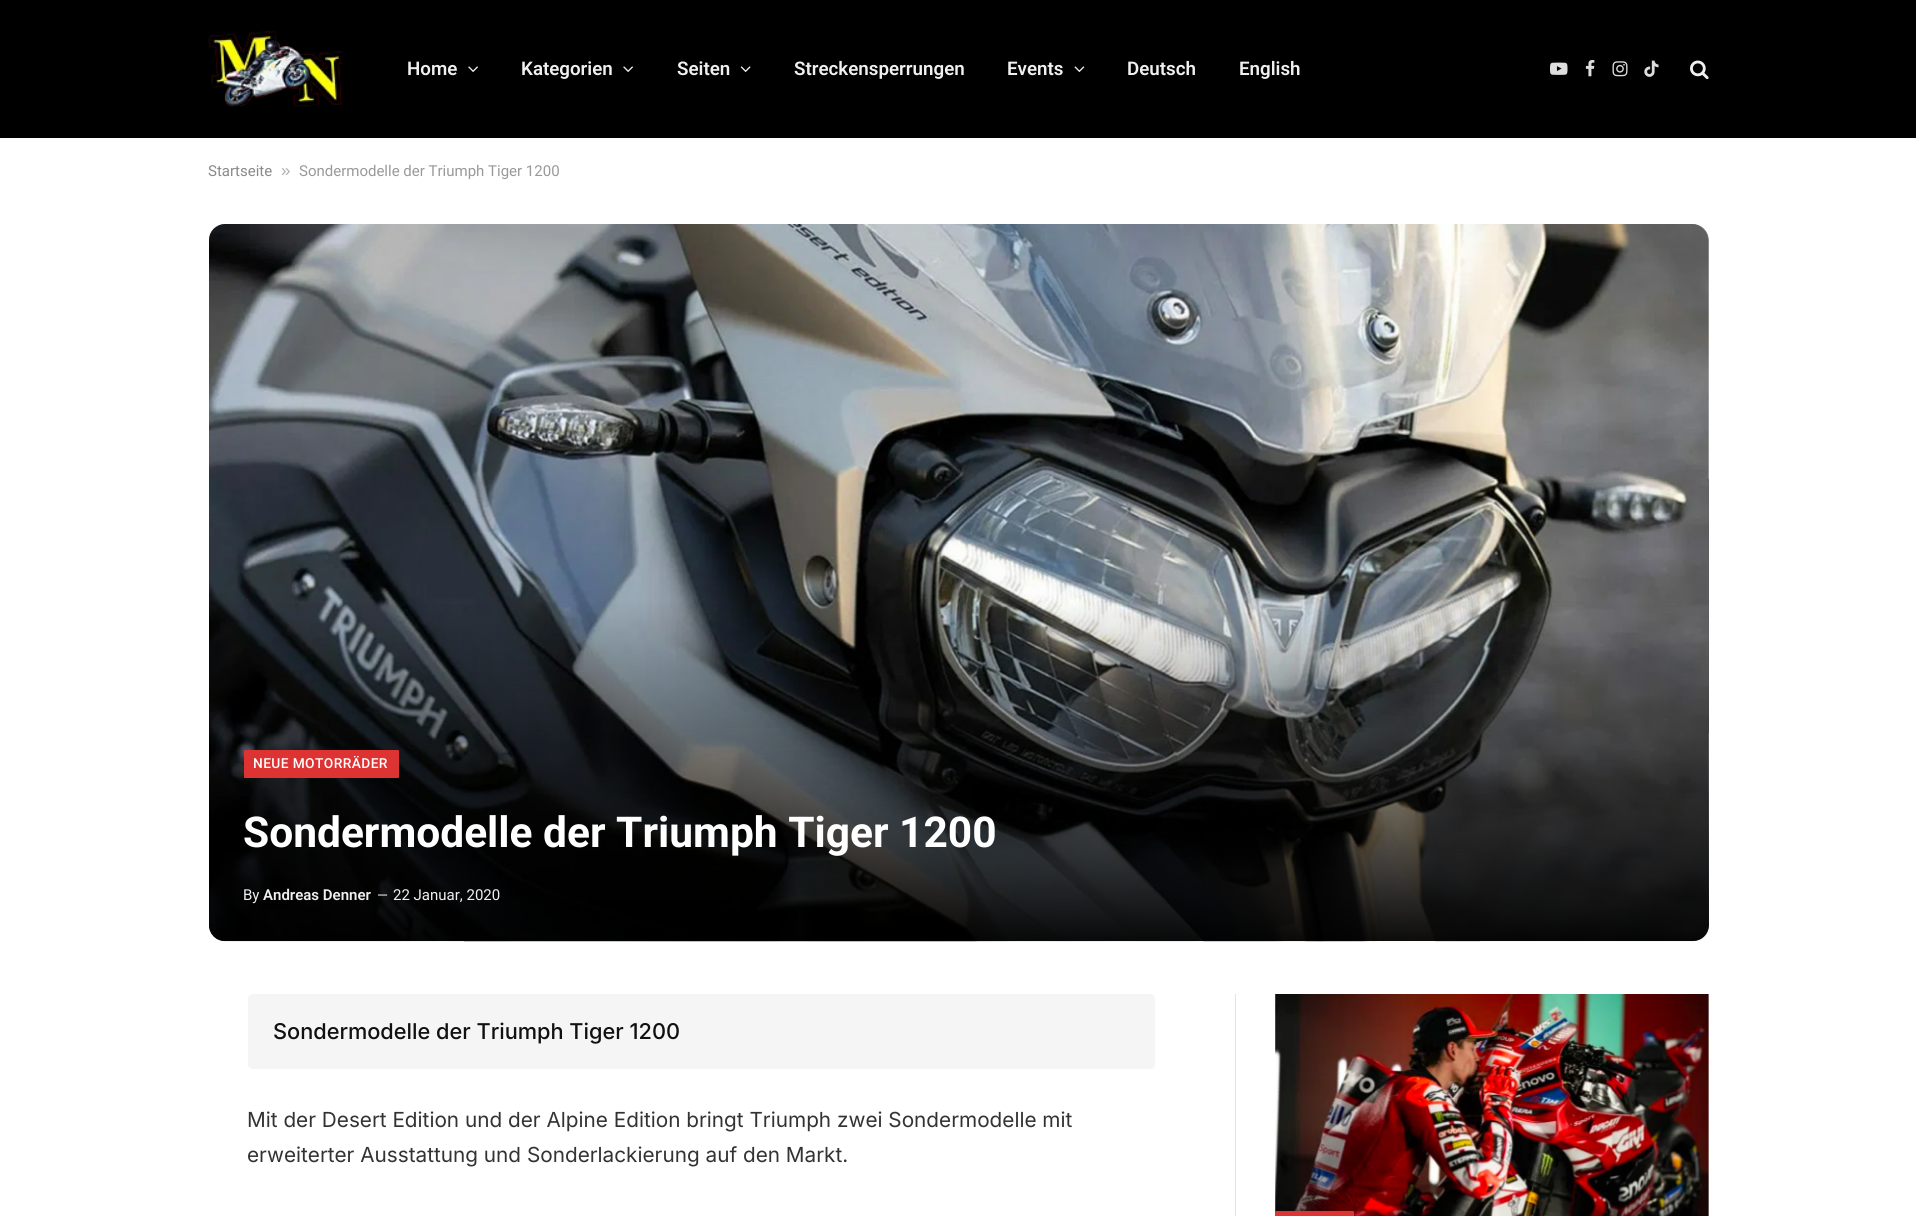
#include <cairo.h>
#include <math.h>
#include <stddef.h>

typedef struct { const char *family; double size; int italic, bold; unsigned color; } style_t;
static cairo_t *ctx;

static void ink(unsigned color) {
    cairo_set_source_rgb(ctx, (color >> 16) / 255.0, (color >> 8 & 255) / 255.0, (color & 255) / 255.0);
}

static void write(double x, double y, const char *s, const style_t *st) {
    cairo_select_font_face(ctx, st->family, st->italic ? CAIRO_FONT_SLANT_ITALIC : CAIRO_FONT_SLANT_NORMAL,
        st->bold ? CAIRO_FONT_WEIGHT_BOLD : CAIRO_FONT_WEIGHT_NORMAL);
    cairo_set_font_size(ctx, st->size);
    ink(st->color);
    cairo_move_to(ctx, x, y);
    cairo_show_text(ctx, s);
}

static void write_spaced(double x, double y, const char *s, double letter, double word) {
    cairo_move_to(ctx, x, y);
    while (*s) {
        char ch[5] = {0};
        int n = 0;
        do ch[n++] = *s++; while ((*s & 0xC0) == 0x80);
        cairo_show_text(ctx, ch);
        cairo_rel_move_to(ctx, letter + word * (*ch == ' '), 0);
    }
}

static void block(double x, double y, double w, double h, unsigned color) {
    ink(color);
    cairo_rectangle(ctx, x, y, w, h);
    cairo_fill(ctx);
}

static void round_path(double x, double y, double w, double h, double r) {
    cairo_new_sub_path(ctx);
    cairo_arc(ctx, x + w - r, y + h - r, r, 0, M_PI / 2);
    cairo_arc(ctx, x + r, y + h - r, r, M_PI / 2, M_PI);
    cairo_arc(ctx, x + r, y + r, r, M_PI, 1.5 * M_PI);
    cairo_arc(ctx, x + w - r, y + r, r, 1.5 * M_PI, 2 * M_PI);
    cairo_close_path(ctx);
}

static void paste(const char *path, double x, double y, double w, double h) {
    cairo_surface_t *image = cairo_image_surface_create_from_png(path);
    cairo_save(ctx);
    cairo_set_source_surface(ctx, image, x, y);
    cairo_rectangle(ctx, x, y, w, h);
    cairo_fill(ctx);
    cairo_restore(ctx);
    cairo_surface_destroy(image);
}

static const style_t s1 = {"Roboto SemiBold", 18.75, 0, 0, 0xf0f0f0};
static const style_t s2 = {"Roboto", 15, 0, 0, 0x8a8a8a};
static const style_t s3 = {"Liberation Sans", 17, 0, 0, 0xadadad};
static const style_t s4 = {"Roboto", 15, 0, 0, 0x999999};
static const style_t s5 = {"Roboto", 42.5, 0, 1, 0xffffff};
static const style_t s6 = {"Roboto", 15, 0, 0, 0xf0f0f0};
static const style_t s7 = {"Roboto SemiBold", 15, 0, 0, 0xf0f0f0};
static const style_t s8 = {"Roboto", 14, 0, 0, 0xf0f0f0};
static const style_t s9 = {"Inter Medium", 21.75, 0, 0, 0x111111};
static const style_t s10 = {"Inter", 20.75, 0, 0, 0x333333};

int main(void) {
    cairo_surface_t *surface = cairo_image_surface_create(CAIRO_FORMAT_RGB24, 1916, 1216);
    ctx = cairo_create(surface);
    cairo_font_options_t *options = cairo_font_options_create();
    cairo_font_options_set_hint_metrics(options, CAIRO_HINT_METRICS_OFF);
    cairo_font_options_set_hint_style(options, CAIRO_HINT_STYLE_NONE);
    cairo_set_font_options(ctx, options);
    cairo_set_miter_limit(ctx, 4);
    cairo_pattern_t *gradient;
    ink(0xffffff);
    cairo_paint(ctx);
    block(0, 0, 1916, 138, 0x000000);
    paste("pic1.png", 208, 31, 135, 76);
    write(407, 75, "Home", &s1);
    paste("pic2.png", 468, 66, 10, 6);
    write(521, 75, "Kategorien", &s1);
    paste("pic2.png", 623, 66, 10, 6);
    write(677, 75, "Seiten", &s1);
    paste("pic3.png", 740, 66, 11, 6);
    write(794, 75, "Streckensperrungen", &s1);
    write(1007, 75, "Events", &s1);
    paste("pic4.png", 1074, 66, 11, 6);
    write(1127, 75, "Deutsch", &s1);
    write(1239, 75, "English", &s1);
    paste("pic5.png", 1550, 62, 18, 13);
    paste("pic6.png", 1585, 60, 10, 17);
    paste("pic7.png", 1612, 61, 16, 16);
    paste("pic8.png", 1644, 60, 15, 17);
    paste("pic9.png", 1690, 60, 19, 20);
    write(208, 176, "Startseite", &s2);
    write(281, 176, "»", &s3);
    write(299, 176, "Sondermodelle der Triumph Tiger 1200", &s4);
    paste("pic10.png", 209, 224, 1500, 718);
    gradient = cairo_pattern_create_linear(959, 600, 959, 941);
    cairo_pattern_add_color_stop_rgba(gradient, 0, 0, 0, 0, 0);
    cairo_pattern_add_color_stop_rgba(gradient, 1, 0, 0, 0, 0.95);
    cairo_set_source(ctx, gradient);
    cairo_pattern_destroy(gradient);
    cairo_new_path(ctx);
    cairo_move_to(ctx, 209, 600);
    cairo_line_to(ctx, 1709, 600);
    cairo_line_to(ctx, 1709, 925);
    cairo_curve_to(ctx, 1709, 934, 1702, 941, 1693, 941);
    cairo_line_to(ctx, 225, 941);
    cairo_curve_to(ctx, 216, 941, 209, 934, 209, 925);
    cairo_close_path(ctx);
    cairo_fill(ctx);
    ink(0xdd3333);
    round_path(244, 750, 155, 28, 1);
    cairo_fill(ctx);
    cairo_select_font_face(ctx, "Roboto Medium", CAIRO_FONT_SLANT_NORMAL, CAIRO_FONT_WEIGHT_NORMAL);
    cairo_set_font_size(ctx, 13.75);
    ink(0xffffff);
    write_spaced(253, 768, "NEUE MOTORRÄDER", 0.4, 0);
    write(243, 847, "Sondermodelle der Triumph Tiger 1200", &s5);
    write(243, 900, "By", &s6);
    write(263, 900, "Andreas Denner", &s7);
    write(377, 900, "—", &s8);
    write(393, 900, "22 Januar, 2020", &s6);
    ink(0xf5f5f5);
    round_path(248, 994, 907, 75, 5);
    cairo_fill(ctx);
    write(273, 1039, "Sondermodelle der Triumph Tiger 1200", &s9);
    write(247, 1127, "Mit der Desert Edition und der Alpine Edition bringt Triumph zwei Sondermodelle mit", &s10);
    write(247, 1162, "erweiterter Ausstattung und Sonderlackierung auf den Markt.", &s10);
    block(1235, 994, 1, 222, 0xe2e2e2);
    paste("pic11.png", 1275, 994, 434, 222);
    ink(0xdd3333);
    round_path(1275, 1211, 79, 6, 1);
    cairo_fill(ctx);
    cairo_surface_write_to_png(surface, "screenshot.png");
    cairo_font_options_destroy(options);
    cairo_destroy(ctx);
    cairo_surface_destroy(surface);
    return 0;
}
